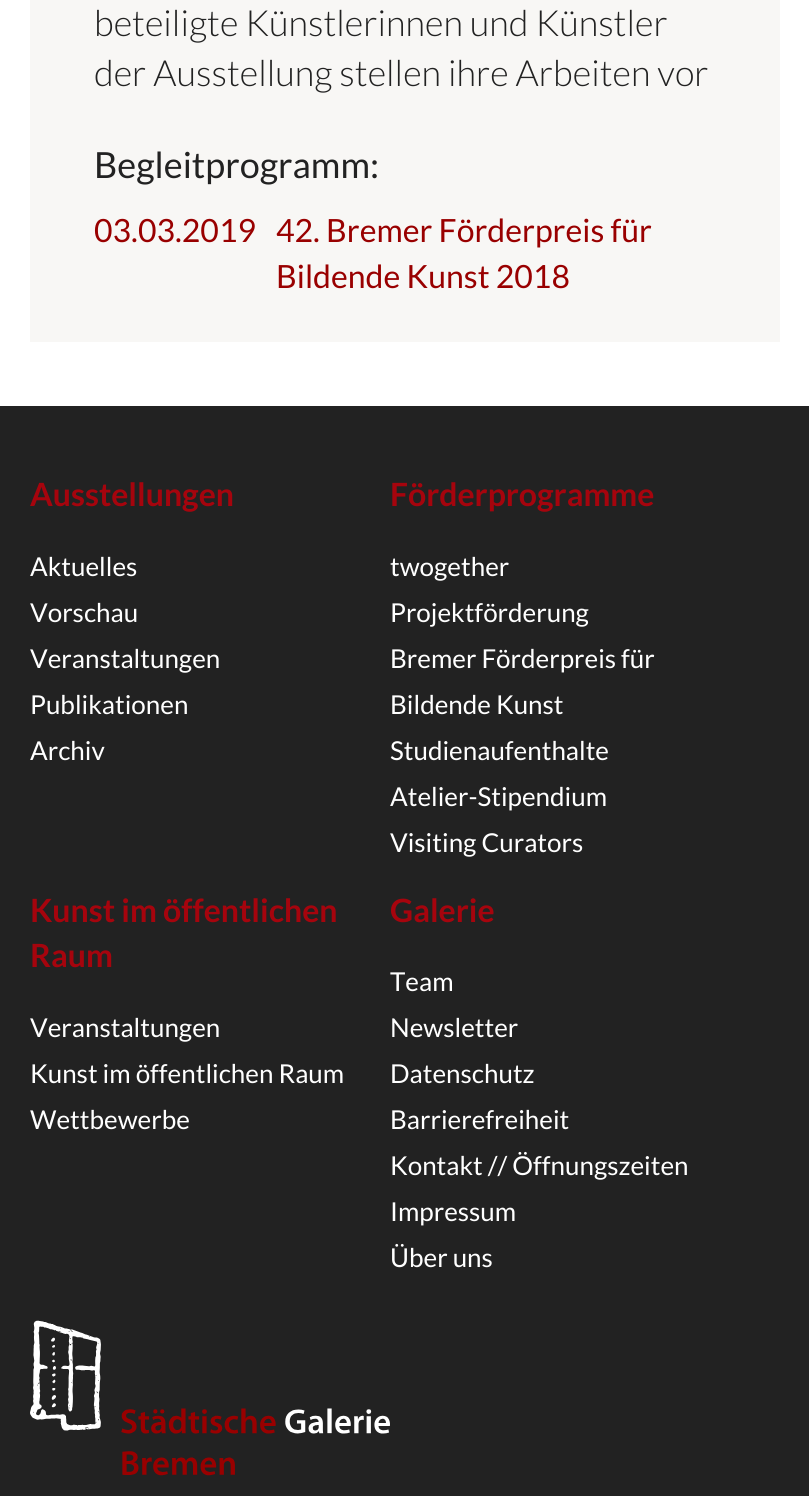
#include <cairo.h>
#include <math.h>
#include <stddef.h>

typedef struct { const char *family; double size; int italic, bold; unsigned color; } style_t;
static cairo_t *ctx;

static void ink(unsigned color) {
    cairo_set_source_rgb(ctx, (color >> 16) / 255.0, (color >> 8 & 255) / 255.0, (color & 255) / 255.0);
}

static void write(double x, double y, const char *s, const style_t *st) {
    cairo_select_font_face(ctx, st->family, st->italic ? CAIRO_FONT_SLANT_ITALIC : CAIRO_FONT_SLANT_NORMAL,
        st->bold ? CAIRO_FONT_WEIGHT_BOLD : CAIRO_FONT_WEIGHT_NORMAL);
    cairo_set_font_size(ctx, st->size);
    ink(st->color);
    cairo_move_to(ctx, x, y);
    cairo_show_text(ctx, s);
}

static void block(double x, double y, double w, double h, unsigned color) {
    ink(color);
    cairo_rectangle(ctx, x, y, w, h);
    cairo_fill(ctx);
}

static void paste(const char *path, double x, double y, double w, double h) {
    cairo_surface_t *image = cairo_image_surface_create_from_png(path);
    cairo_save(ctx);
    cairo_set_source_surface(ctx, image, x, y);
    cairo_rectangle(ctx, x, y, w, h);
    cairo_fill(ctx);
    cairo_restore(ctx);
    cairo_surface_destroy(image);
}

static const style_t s1 = {"Lato Light", 36, 0, 0, 0x222222};
static const style_t s2 = {"Lato", 36, 0, 0, 0x222222};
static const style_t s3 = {"Lato", 32, 0, 0, 0x990000};
static const style_t s4 = {"Lato", 32, 0, 1, 0xa6040d};
static const style_t s5 = {"Lato", 26, 0, 0, 0xffffff};

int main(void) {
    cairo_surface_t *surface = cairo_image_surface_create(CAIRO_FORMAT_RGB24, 809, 1496);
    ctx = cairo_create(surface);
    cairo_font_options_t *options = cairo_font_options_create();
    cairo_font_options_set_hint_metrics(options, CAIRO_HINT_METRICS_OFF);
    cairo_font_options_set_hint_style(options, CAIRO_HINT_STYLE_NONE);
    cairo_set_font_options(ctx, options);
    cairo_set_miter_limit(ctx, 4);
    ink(0xffffff);
    cairo_paint(ctx);
    block(30, 0, 750, 342, 0xf8f7f5);
    write(94, 36, "beteiligte Künstlerinnen und Künstler", &s1);
    write(94, 86, "der Ausstellung stellen ihre Arbeiten vor", &s1);
    write(94, 178, "Begleitprogramm:", &s2);
    write(94, 242, "03.03.2019", &s3);
    write(276, 242, "42. Bremer Förderpreis für", &s3);
    write(276, 288, "Bildende Kunst 2018", &s3);
    block(0, 406, 809, 1090, 0x222222);
    write(30, 506, "Ausstellungen", &s4);
    write(30, 576, "Aktuelles", &s5);
    write(30, 622, "Vorschau", &s5);
    write(30, 668, "Veranstaltungen", &s5);
    write(30, 714, "Publikationen", &s5);
    write(30, 760, "Archiv", &s5);
    write(390, 506, "Förderprogramme", &s4);
    write(390, 576, "twogether", &s5);
    write(390, 622, "Projektförderung", &s5);
    write(390, 668, "Bremer Förderpreis für", &s5);
    write(390, 714, "Bildende Kunst", &s5);
    write(390, 760, "Studienaufenthalte", &s5);
    write(390, 806, "Atelier-Stipendium", &s5);
    write(390, 852, "Visiting Curators", &s5);
    write(30, 922, "Kunst im öffentlichen", &s4);
    write(30, 967, "Raum", &s4);
    write(30, 1037, "Veranstaltungen", &s5);
    write(30, 1083, "Kunst im öffentlichen Raum", &s5);
    write(30, 1129, "Wettbewerbe", &s5);
    write(390, 922, "Galerie", &s4);
    write(390, 991, "Team", &s5);
    write(390, 1037, "Newsletter", &s5);
    write(390, 1083, "Datenschutz", &s5);
    write(390, 1129, "Barrierefreiheit", &s5);
    write(390, 1175, "Kontakt // Öffnungszeiten", &s5);
    write(390, 1221, "Impressum", &s5);
    write(390, 1267, "Über uns", &s5);
    paste("pic1.png", 30, 1320, 360, 156);
    cairo_surface_write_to_png(surface, "screenshot.png");
    cairo_font_options_destroy(options);
    cairo_destroy(ctx);
    cairo_surface_destroy(surface);
    return 0;
}
